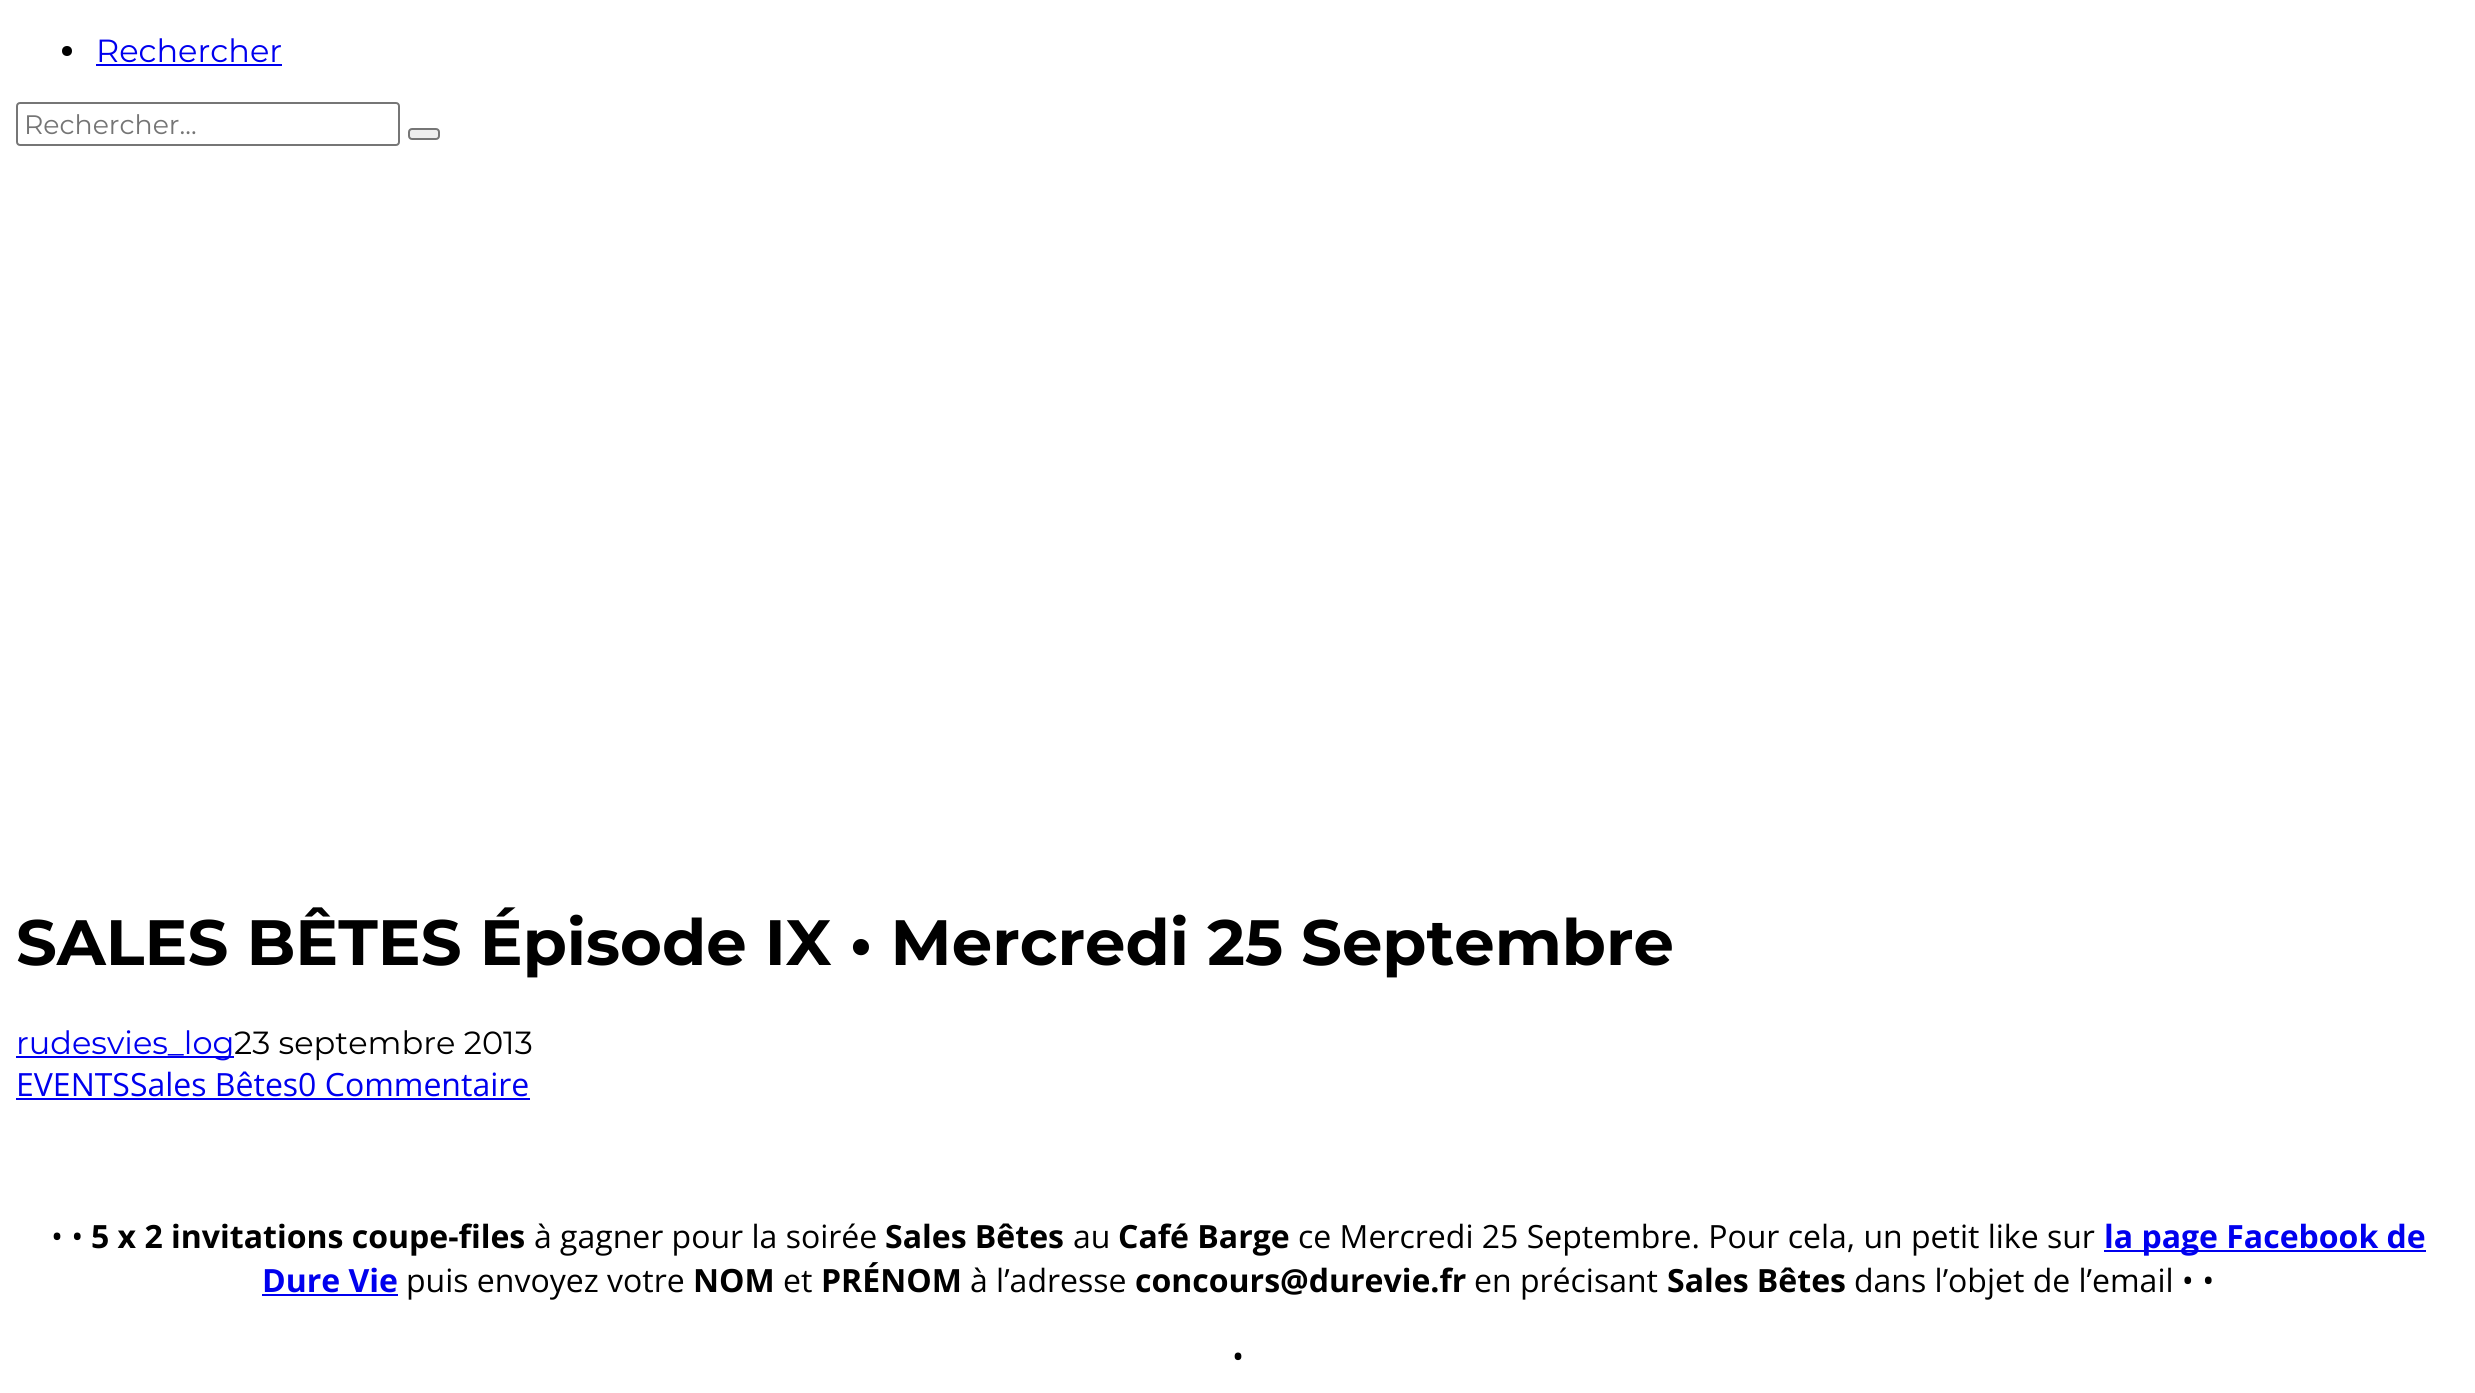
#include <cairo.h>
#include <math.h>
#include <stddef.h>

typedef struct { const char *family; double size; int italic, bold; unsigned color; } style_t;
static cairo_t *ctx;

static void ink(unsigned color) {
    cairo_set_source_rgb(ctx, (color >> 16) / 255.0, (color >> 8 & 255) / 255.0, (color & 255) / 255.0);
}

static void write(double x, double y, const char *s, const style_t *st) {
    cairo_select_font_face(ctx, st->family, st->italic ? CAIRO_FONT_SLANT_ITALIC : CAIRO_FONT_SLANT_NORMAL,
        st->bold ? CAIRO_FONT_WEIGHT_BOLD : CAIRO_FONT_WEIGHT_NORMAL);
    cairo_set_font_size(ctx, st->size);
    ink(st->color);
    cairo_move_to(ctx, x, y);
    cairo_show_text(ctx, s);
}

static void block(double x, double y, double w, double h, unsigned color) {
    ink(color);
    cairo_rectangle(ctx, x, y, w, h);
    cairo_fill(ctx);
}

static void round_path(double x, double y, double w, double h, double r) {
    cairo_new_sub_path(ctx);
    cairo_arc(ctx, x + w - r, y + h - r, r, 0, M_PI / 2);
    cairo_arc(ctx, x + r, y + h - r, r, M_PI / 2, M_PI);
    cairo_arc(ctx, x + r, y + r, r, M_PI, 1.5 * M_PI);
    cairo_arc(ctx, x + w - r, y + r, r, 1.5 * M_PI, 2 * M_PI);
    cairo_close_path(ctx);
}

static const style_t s1 = {"Montserrat", 32, 0, 0, 0x0000ee};
static const style_t s2 = {"Montserrat", 26.75, 0, 0, 0x757575};
static const style_t s3 = {"Montserrat", 64, 0, 1, 0x000000};
static const style_t s4 = {"Montserrat", 32, 0, 0, 0x000000};
static const style_t s5 = {"Open Sans", 32, 0, 0, 0x0000ee};
static const style_t s6 = {"Open Sans", 32, 0, 0, 0x000000};
static const style_t s7 = {"Open Sans", 32, 0, 1, 0x000000};
static const style_t s8 = {"Open Sans", 32, 0, 1, 0x0000ee};

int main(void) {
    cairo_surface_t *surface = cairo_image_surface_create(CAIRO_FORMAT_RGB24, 2475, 1393);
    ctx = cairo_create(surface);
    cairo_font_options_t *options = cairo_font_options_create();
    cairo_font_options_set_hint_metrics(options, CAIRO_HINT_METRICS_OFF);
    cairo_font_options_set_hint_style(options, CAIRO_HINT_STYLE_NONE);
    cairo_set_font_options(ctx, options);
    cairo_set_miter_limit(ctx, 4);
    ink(0xffffff);
    cairo_paint(ctx);
    ink(0x000000);
    cairo_arc(ctx, 67, 51, 5, 0, 2 * M_PI);
    cairo_fill(ctx);
    write(96, 62, "Rechercher", &s1);
    block(96, 64, 186, 2, 0x0000ee);
    round_path(17, 103, 382, 42, 3);
    ink(0x767676);
    cairo_stroke(ctx);
    write(24, 134, "Rechercher...", &s2);
    ink(0xefefef);
    round_path(409, 129, 30, 10, 3);
    cairo_fill_preserve(ctx);
    ink(0x767676);
    cairo_stroke(ctx);
    write(16, 965, "SALES BÊTES Épisode IX • Mercredi 25 Septembre", &s3);
    block(16, 1056, 218, 2, 0x0000ee);
    write(16, 1054, "rudesvies_log", &s1);
    write(234, 1054, "23 septembre 2013", &s4);
    write(16, 1096, "EVENTSSales Bêtes0 Commentaire", &s5);
    block(16, 1098, 514, 2, 0x0000ee);
    write(51, 1248, "• •", &s6);
    write(91, 1248, "5 x 2 invitations coupe-files", &s7);
    write(534, 1248, "à gagner pour la soirée", &s6);
    write(885, 1248, "Sales Bêtes", &s7);
    write(1073, 1248, "au", &s6);
    write(1118, 1248, "Café Barge", &s7);
    write(1298, 1248, "ce Mercredi 25 Septembre. Pour cela, un petit like sur", &s6);
    block(2104, 1250, 322, 2, 0x0000ee);
    write(2104, 1248, "la page Facebook de", &s8);
    write(262, 1292, "Dure Vie", &s8);
    block(262, 1294, 136, 2, 0x0000ee);
    write(406, 1292, "puis envoyez votre", &s6);
    write(693, 1292, "NOM", &s7);
    write(783, 1292, "et", &s6);
    write(821, 1292, "PRÉNOM", &s7);
    write(970, 1292, "à l’adresse", &s6);
    write(1135, 1292, "concours@durevie.fr", &s7);
    write(1474, 1292, "en précisant", &s6);
    write(1667, 1292, "Sales Bêtes", &s7);
    write(1854, 1292, "dans l’objet de l’email • •", &s6);
    write(1232, 1368, "•", &s6);
    cairo_surface_write_to_png(surface, "screenshot.png");
    cairo_font_options_destroy(options);
    cairo_destroy(ctx);
    cairo_surface_destroy(surface);
    return 0;
}
